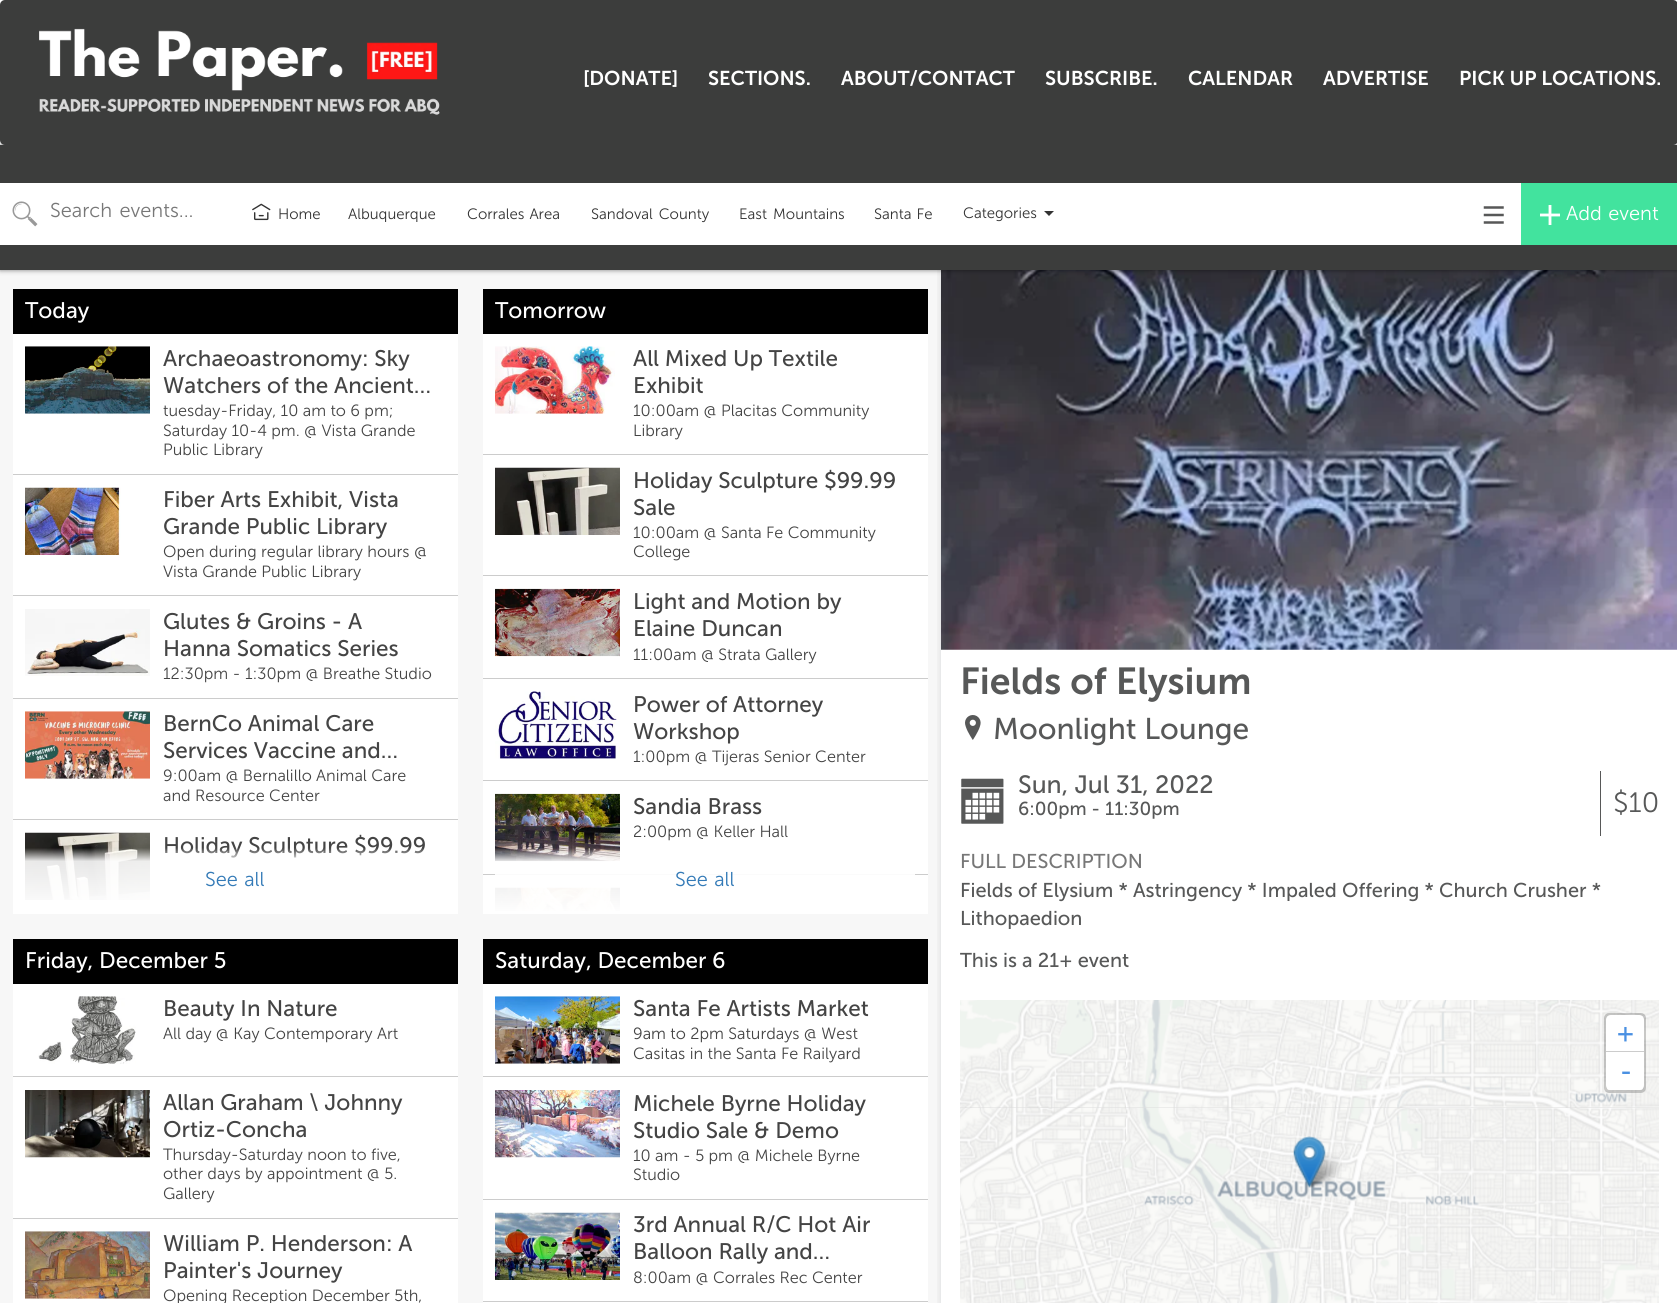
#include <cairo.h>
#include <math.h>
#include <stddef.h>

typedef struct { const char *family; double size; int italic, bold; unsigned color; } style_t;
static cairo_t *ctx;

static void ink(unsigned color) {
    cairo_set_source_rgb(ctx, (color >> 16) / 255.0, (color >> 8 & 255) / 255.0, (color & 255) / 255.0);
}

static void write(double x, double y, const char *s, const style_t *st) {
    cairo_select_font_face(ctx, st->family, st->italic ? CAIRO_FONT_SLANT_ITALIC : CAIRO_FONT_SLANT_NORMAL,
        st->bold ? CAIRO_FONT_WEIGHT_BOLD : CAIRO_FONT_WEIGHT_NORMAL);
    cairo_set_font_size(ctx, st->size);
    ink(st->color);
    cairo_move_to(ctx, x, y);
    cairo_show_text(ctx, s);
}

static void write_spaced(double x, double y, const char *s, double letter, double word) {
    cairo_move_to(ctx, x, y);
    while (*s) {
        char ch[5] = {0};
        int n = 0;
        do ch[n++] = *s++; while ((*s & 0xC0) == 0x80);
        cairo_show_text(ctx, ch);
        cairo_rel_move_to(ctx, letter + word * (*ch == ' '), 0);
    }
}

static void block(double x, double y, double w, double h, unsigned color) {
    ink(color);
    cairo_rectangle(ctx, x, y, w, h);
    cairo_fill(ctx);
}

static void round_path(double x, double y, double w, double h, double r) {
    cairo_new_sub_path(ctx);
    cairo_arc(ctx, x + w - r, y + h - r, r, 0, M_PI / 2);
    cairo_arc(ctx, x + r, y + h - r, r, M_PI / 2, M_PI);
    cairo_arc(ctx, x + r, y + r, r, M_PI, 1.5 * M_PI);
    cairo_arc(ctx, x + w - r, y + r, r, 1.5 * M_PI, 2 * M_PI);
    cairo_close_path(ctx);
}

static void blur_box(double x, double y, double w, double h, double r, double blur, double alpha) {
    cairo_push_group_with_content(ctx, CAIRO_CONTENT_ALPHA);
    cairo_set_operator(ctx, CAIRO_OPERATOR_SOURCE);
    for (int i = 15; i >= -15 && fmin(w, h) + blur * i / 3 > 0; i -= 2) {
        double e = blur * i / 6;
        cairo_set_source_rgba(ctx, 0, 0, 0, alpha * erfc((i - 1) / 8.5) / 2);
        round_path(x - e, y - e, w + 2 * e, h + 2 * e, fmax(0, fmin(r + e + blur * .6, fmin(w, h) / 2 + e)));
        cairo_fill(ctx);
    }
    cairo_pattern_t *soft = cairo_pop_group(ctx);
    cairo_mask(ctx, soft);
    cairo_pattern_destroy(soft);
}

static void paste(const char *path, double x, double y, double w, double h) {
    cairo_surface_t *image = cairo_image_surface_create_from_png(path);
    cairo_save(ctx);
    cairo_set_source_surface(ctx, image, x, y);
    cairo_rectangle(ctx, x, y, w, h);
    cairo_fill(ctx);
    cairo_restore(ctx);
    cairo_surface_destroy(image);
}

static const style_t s1 = {"Museo Sans SemiBold", 20, 0, 0, 0xffffff};
static const style_t s2 = {"Museo Sans Light", 15, 0, 0, 0x333333};
static const style_t s3 = {"Museo Sans", 22.5, 0, 0, 0xffffff};
static const style_t s4 = {"Museo Sans", 22.5, 0, 0, 0x444444};
static const style_t s5 = {"Museo Sans Light", 16.25, 0, 0, 0x444444};
static const style_t s6 = {"Museo Sans SemiBold", 37.5, 0, 0, 0x575858};
static const style_t s7 = {"Museo Sans", 30, 0, 0, 0x575858};
static const style_t s8 = {"Museo Sans", 25, 0, 0, 0x575858};
static const style_t s9 = {"Museo Sans", 18.75, 0, 0, 0x575858};
static const style_t s10 = {"Museo Sans Light", 28, 0, 0, 0x575858};
static const style_t s11 = {"Museo Sans", 20, 0, 0, 0x777777};
static const style_t s12 = {"Museo Sans", 20, 0, 0, 0x575858};
static const style_t s13 = {"DejaVu Sans Mono", 28, 0, 0, 0x4a90e2};
static const style_t s14 = {"DejaVu Sans Mono", 30, 0, 0, 0x4a90e2};

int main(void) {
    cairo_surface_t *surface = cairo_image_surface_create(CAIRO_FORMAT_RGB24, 1677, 1303);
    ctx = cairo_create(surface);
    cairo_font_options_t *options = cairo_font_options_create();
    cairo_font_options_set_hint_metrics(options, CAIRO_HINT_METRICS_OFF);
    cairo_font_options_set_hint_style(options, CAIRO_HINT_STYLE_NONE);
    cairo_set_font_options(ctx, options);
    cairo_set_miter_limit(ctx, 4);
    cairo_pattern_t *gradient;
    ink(0xffffff);
    cairo_paint(ctx);
    block(0, 270, 940, 1033, 0xf7f7f7);
    cairo_save(ctx);
    cairo_rectangle(ctx, 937, 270, 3, 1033);
    cairo_clip(ctx);
    ink(0x000000);
    blur_box(938, 206, 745, 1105, 0, 2.5, 0.06);
    cairo_restore(ctx);
    block(940, 270, 1, 1033, 0xe8e9ea);
    paste("pic23.png", 941, 270, 736, 380);
    ink(0x000000);
    blur_box(0, 145, 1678, 125, 0, 2.5, 0.5);
    ink(0x3c3d3c);
    round_path(0, 0, 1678, 145, 5);
    cairo_fill(ctx);
    paste("pic1.png", 39, 28, 401, 87);
    write(583, 85, "[DONATE]", &s1);
    write(708, 85, "SECTIONS.", &s1);
    write(841, 85, "ABOUT/CONTACT", &s1);
    write(1045, 85, "SUBSCRIBE.", &s1);
    write(1188, 85, "CALENDAR", &s1);
    write(1323, 85, "ADVERTISE", &s1);
    write(1459, 85, "PICK UP LOCATIONS.", &s1);
    block(0, 145, 1677, 125, 0x3c3d3c);
    block(0, 183, 1521, 62, 0xffffff);
    paste("pic2.png", 12, 201, 26, 26);
    cairo_select_font_face(ctx, "Museo Sans Light", CAIRO_FONT_SLANT_NORMAL, CAIRO_FONT_WEIGHT_NORMAL);
    ink(0x777777);
    write_spaced(50, 217, "Search events...", 0, 2);
    paste("pic3.png", 252, 203, 19, 18);
    write(278, 219, "Home", &s2);
    write(348, 219, "Albuquerque", &s2);
    write_spaced(467, 219, "Corrales Area", 0, 1);
    write_spaced(591, 219, "Sandoval County", 0, 2);
    write_spaced(739, 219, "East Mountains", 0, 2);
    write_spaced(874, 219, "Santa Fe", 0, 1);
    write(963, 218, "Categories", &s2);
    cairo_new_path(ctx);
    cairo_move_to(ctx, 1044, 211);
    cairo_line_to(ctx, 1054, 211);
    cairo_line_to(ctx, 1049, 216);
    cairo_close_path(ctx);
    cairo_fill(ctx);
    paste("pic4.png", 1483, 206, 21, 18);
    block(1521, 183, 156, 62, 0x42e39e);
    paste("pic5.png", 1540, 205, 20, 20);
    cairo_set_font_size(ctx, 20);
    ink(0xffffff);
    write_spaced(1566, 220, "Add event", 0, 1);
    block(13, 289, 445, 45, 0x000000);
    write(25, 318, "Today", &s3);
    block(13, 334, 445, 140, 0xffffff);
    block(13, 474, 445, 1, 0xcccccc);
    paste("pic6.png", 25, 346, 125, 68);
    write(163, 366, "Archaeoastronomy: Sky", &s4);
    write(163, 393, "Watchers of the Ancient…", &s4);
    write(163, 416, "tuesday-Friday, 10 am to 6 pm;", &s5);
    write(163, 436, "Saturday 10-4 pm. @ Vista Grande", &s5);
    write(163, 455, "Public Library", &s5);
    block(13, 475, 445, 120, 0xffffff);
    block(13, 595, 445, 1, 0xcccccc);
    paste("pic7.png", 25, 487, 96, 68);
    write(163, 507, "Fiber Arts Exhibit, Vista", &s4);
    write(163, 534, "Grande Public Library", &s4);
    write(163, 557, "Open during regular library hours @", &s5);
    write(163, 577, "Vista Grande Public Library", &s5);
    block(13, 596, 445, 102, 0xffffff);
    block(13, 698, 445, 1, 0xcccccc);
    paste("pic8.png", 25, 609, 125, 67);
    write(163, 629, "Glutes & Groins - A", &s4);
    write(163, 656, "Hanna Somatics Series", &s4);
    write(163, 679, "12:30pm - 1:30pm @ Breathe Studio", &s5);
    block(13, 699, 445, 120, 0xffffff);
    block(13, 819, 445, 1, 0xcccccc);
    paste("pic9.png", 25, 711, 125, 68);
    write(163, 731, "BernCo Animal Care", &s4);
    write(163, 758, "Services Vaccine and…", &s4);
    write(163, 781, "9:00am @ Bernalillo Animal Care", &s5);
    write(163, 801, "and Resource Center", &s5);
    block(13, 820, 445, 94, 0xffffff);
    paste("pic10.png", 25, 832, 125, 68);
    write(163, 853, "Holiday Sculpture $99.99", &s4);
    gradient = cairo_pattern_create_linear(235, 914, 235, 848);
    cairo_pattern_add_color_stop_rgba(gradient, 0, 1, 1, 1, 1);
    cairo_pattern_add_color_stop_rgba(gradient, 0.8, 1, 1, 1, 0.9);
    cairo_pattern_add_color_stop_rgba(gradient, 1, 1, 1, 1, 0);
    cairo_set_source(ctx, gradient);
    cairo_pattern_destroy(gradient);
    cairo_rectangle(ctx, 25, 848, 399, 52);
    cairo_fill(ctx);
    cairo_select_font_face(ctx, "Museo Sans Light", CAIRO_FONT_SLANT_NORMAL, CAIRO_FONT_WEIGHT_NORMAL);
    cairo_set_font_size(ctx, 20);
    ink(0x337ab7);
    write_spaced(205, 886, "See all", 0, 1);
    block(483, 289, 445, 45, 0x000000);
    write(495, 318, "Tomorrow", &s3);
    block(483, 334, 445, 120, 0xffffff);
    block(483, 454, 445, 1, 0xcccccc);
    paste("pic11.png", 495, 346, 120, 68);
    write(633, 366, "All Mixed Up Textile", &s4);
    write(633, 393, "Exhibit", &s4);
    write(633, 416, "10:00am @ Placitas Community", &s5);
    write(633, 436, "Library", &s5);
    block(483, 455, 445, 120, 0xffffff);
    block(483, 575, 445, 1, 0xcccccc);
    paste("pic12.png", 495, 467, 125, 68);
    write(633, 488, "Holiday Sculpture $99.99", &s4);
    write(633, 515, "Sale", &s4);
    write(633, 538, "10:00am @ Santa Fe Community", &s5);
    write(633, 557, "College", &s5);
    block(483, 576, 445, 102, 0xffffff);
    block(483, 678, 445, 1, 0xcccccc);
    paste("pic13.png", 495, 588, 125, 69);
    write(633, 609, "Light and Motion by", &s4);
    write(633, 636, "Elaine Duncan", &s4);
    write(633, 660, "11:00am @ Strata Gallery", &s5);
    block(483, 679, 445, 101, 0xffffff);
    block(483, 780, 445, 1, 0xcccccc);
    paste("pic14.png", 495, 691, 125, 68);
    write(633, 712, "Power of Attorney", &s4);
    write(633, 739, "Workshop", &s4);
    write(633, 762, "1:00pm @ Tijeras Senior Center", &s5);
    block(483, 781, 445, 93, 0xffffff);
    block(483, 874, 445, 1, 0xcccccc);
    paste("pic15.png", 495, 793, 125, 69);
    write(633, 814, "Sandia Brass", &s4);
    write(633, 837, "2:00pm @ Keller Hall", &s5);
    block(483, 875, 445, 39, 0xffffff);
    paste("pic16.png", 495, 887, 125, 24);
    gradient = cairo_pattern_create_linear(705, 914, 705, 848);
    cairo_pattern_add_color_stop_rgba(gradient, 0, 1, 1, 1, 1);
    cairo_pattern_add_color_stop_rgba(gradient, 0.8, 1, 1, 1, 0.9);
    cairo_pattern_add_color_stop_rgba(gradient, 1, 1, 1, 1, 0);
    cairo_set_source(ctx, gradient);
    cairo_pattern_destroy(gradient);
    cairo_rectangle(ctx, 495, 848, 420, 63);
    cairo_fill(ctx);
    cairo_set_font_size(ctx, 20);
    ink(0x337ab7);
    write_spaced(675, 886, "See all", 0, 1);
    block(13, 939, 445, 45, 0x000000);
    write(25, 968, "Friday, December 5", &s3);
    block(13, 984, 445, 234, 0xffffff);
    block(13, 1076, 445, 1, 0xcccccc);
    paste("pic17.png", 38, 996, 98, 68);
    write(163, 1016, "Beauty In Nature", &s4);
    write(163, 1039, "All day @ Kay Contemporary Art", &s5);
    block(13, 1218, 445, 1, 0xcccccc);
    paste("pic18.png", 25, 1090, 125, 68);
    write(163, 1110, "Allan Graham \\ Johnny", &s4);
    write(163, 1137, "Ortiz-Concha", &s4);
    write(163, 1160, "Thursday-Saturday noon to five,", &s5);
    write(163, 1179, "other days by appointment @ 5.", &s5);
    write(163, 1199, "Gallery", &s5);
    block(13, 1219, 445, 84, 0xffffff);
    paste("pic19.png", 25, 1231, 125, 68);
    write(163, 1251, "William P. Henderson: A", &s4);
    write(163, 1278, "Painter's Journey", &s4);
    write(163, 1301, "Opening Reception December 5th,", &s5);
    block(483, 939, 445, 45, 0x000000);
    write(495, 968, "Saturday, December 6", &s3);
    block(483, 984, 445, 215, 0xffffff);
    block(483, 1076, 445, 1, 0xcccccc);
    paste("pic20.png", 495, 996, 125, 68);
    write(633, 1016, "Santa Fe Artists Market", &s4);
    write(633, 1039, "9am to 2pm Saturdays @ West", &s5);
    write(633, 1059, "Casitas in the Santa Fe Railyard", &s5);
    block(483, 1199, 445, 1, 0xcccccc);
    paste("pic21.png", 495, 1090, 125, 68);
    write(633, 1111, "Michele Byrne Holiday", &s4);
    write(633, 1138, "Studio Sale & Demo", &s4);
    write(633, 1161, "10 am - 5 pm @ Michele Byrne", &s5);
    write(633, 1180, "Studio", &s5);
    block(483, 1200, 445, 103, 0xffffff);
    block(483, 1301, 445, 1, 0xcccccc);
    paste("pic22.png", 495, 1212, 125, 68);
    write(633, 1232, "3rd Annual R/C Hot Air", &s4);
    write(633, 1259, "Balloon Rally and…", &s4);
    write(633, 1283, "8:00am @ Corrales Rec Center", &s5);
    write(960, 694, "Fields of Elysium", &s6);
    paste("pic24.png", 965, 715, 16, 25);
    write(993, 739, "Moonlight Lounge", &s7);
    paste("pic25.png", 961, 778, 43, 46);
    write(1018, 793, "Sun, Jul 31, 2022", &s8);
    write(1018, 815, "6:00pm - 11:30pm", &s9);
    block(1600, 771, 1, 65, 0x575858);
    write(1613, 812, "$10", &s10);
    write(960, 868, "FULL DESCRIPTION", &s11);
    write(960, 897, "Fields of Elysium * Astringency * Impaled Offering * Church Crusher *", &s12);
    write(960, 925, "Lithopaedion", &s12);
    write(960, 967, "This is a 21+ event", &s12);
    block(960, 1107, 699, 1, 0xdddddd);
    paste("pic26.png", 960, 1000, 166, 108);
    paste("pic27.png", 1126, 1000, 320, 108);
    paste("pic28.png", 1446, 1000, 213, 108);
    paste("pic29.png", 960, 1108, 166, 195);
    paste("pic30.png", 1126, 1108, 320, 195);
    paste("pic31.png", 1446, 1108, 213, 195);
    paste("pic33.png", 1305, 1152, 37, 36);
    paste("pic32.png", 1293, 1136, 33, 52);
    round_path(1605.5, 1014.5, 39, 77, 3.5);
    cairo_set_source_rgba(ctx, 0, 0, 0, 0.2);
    cairo_set_line_width(ctx, 3);
    cairo_stroke(ctx);
    ink(0xffffff);
    cairo_new_path(ctx);
    cairo_move_to(ctx, 1611, 1015);
    cairo_line_to(ctx, 1639, 1015);
    cairo_curve_to(ctx, 1642, 1015, 1644, 1017, 1644, 1020);
    cairo_line_to(ctx, 1644, 1053);
    cairo_line_to(ctx, 1606, 1053);
    cairo_line_to(ctx, 1606, 1020);
    cairo_curve_to(ctx, 1606, 1017, 1608, 1015, 1611, 1015);
    cairo_close_path(ctx);
    cairo_fill(ctx);
    block(1606, 1051, 38, 1, 0xcccccc);
    write(1617, 1043, "+", &s13);
    ink(0xffffff);
    cairo_new_path(ctx);
    cairo_move_to(ctx, 1606, 1053);
    cairo_line_to(ctx, 1644, 1053);
    cairo_line_to(ctx, 1644, 1085);
    cairo_curve_to(ctx, 1644, 1088, 1642, 1090, 1639, 1090);
    cairo_line_to(ctx, 1611, 1090);
    cairo_curve_to(ctx, 1608, 1090, 1606, 1088, 1606, 1085);
    cairo_close_path(ctx);
    cairo_fill(ctx);
    write(1617, 1081, "-", &s14);
    cairo_surface_write_to_png(surface, "screenshot.png");
    cairo_font_options_destroy(options);
    cairo_destroy(ctx);
    cairo_surface_destroy(surface);
    return 0;
}
